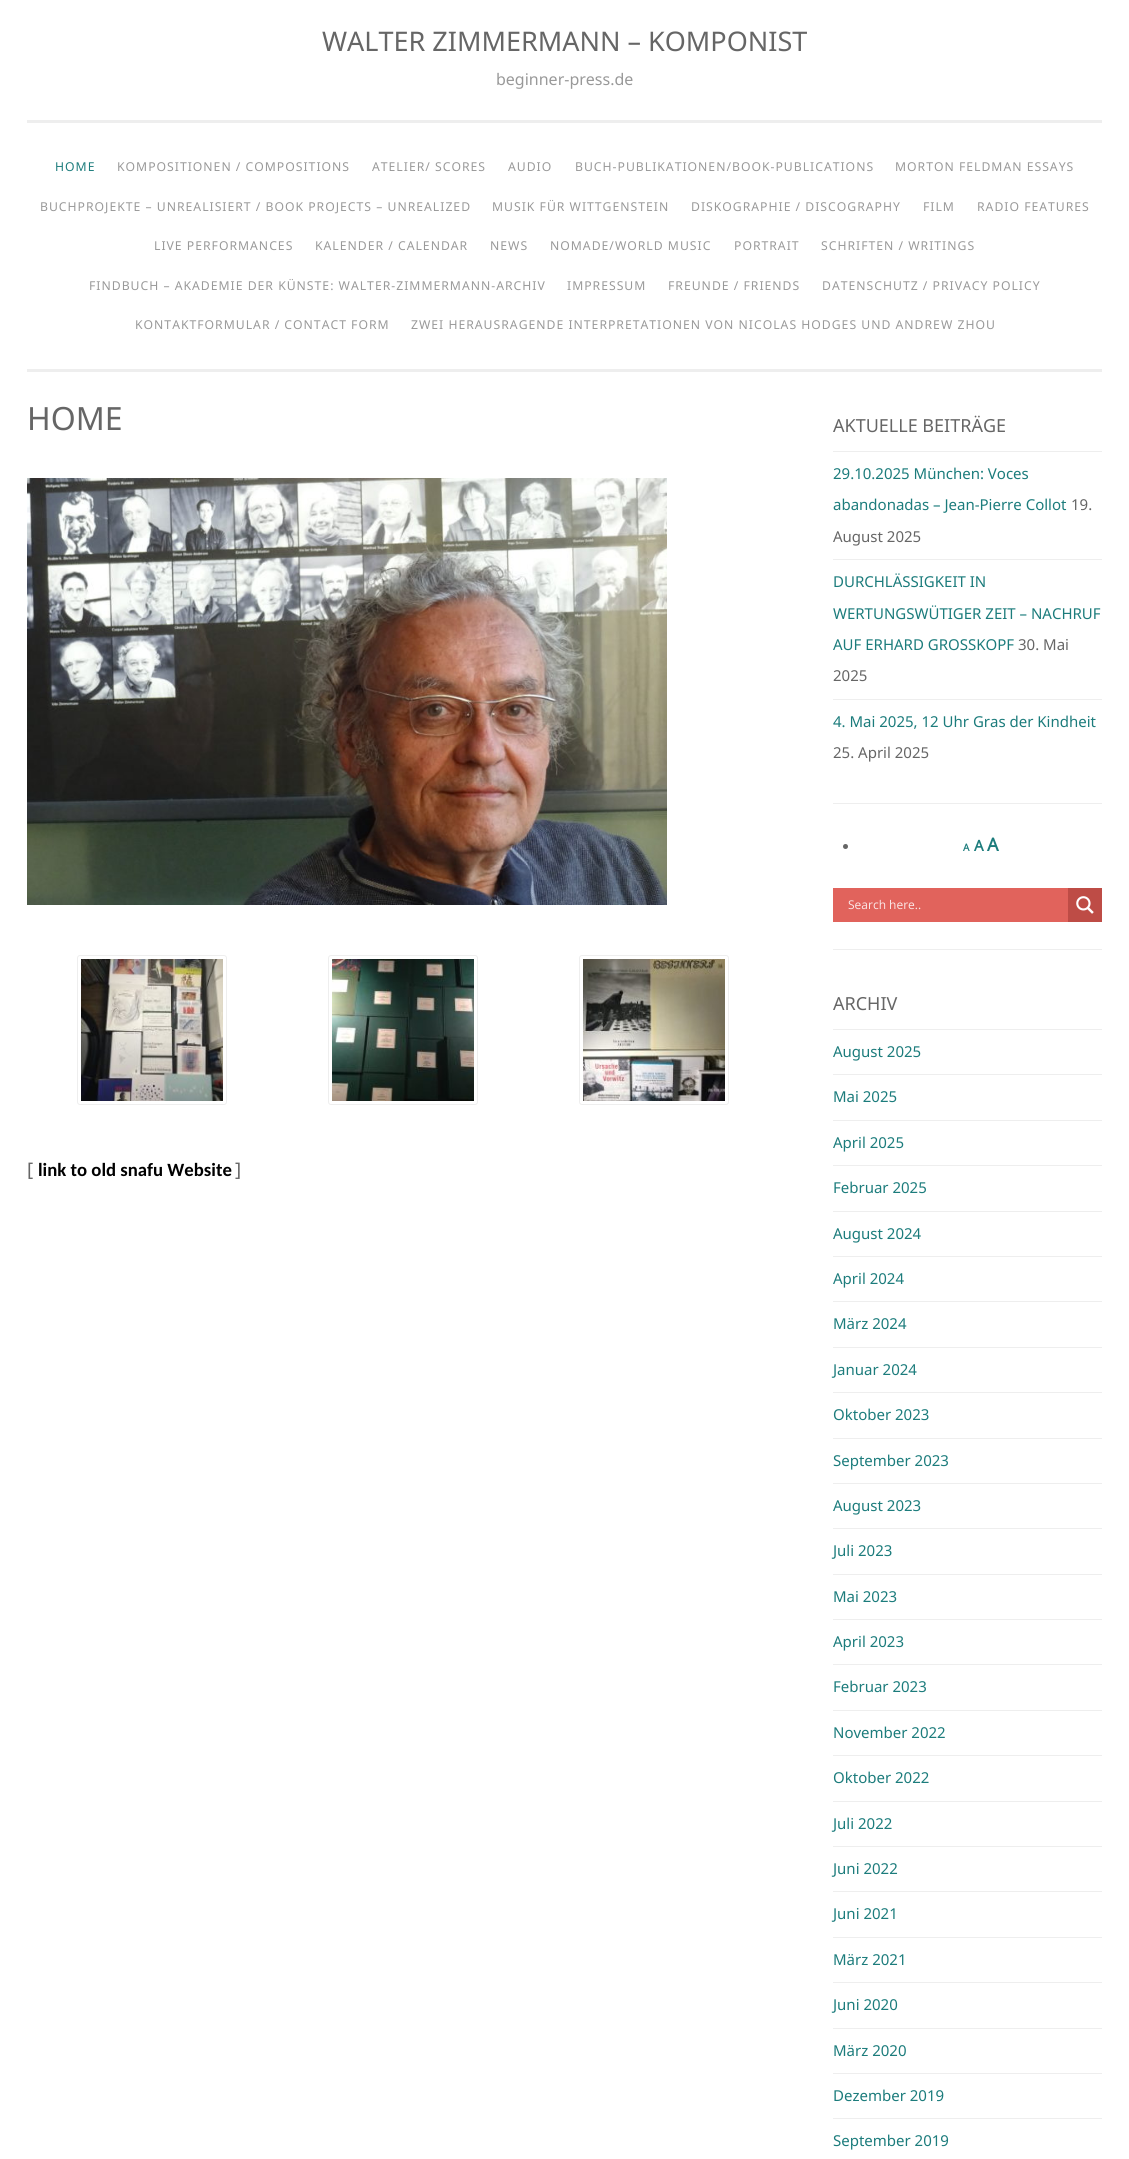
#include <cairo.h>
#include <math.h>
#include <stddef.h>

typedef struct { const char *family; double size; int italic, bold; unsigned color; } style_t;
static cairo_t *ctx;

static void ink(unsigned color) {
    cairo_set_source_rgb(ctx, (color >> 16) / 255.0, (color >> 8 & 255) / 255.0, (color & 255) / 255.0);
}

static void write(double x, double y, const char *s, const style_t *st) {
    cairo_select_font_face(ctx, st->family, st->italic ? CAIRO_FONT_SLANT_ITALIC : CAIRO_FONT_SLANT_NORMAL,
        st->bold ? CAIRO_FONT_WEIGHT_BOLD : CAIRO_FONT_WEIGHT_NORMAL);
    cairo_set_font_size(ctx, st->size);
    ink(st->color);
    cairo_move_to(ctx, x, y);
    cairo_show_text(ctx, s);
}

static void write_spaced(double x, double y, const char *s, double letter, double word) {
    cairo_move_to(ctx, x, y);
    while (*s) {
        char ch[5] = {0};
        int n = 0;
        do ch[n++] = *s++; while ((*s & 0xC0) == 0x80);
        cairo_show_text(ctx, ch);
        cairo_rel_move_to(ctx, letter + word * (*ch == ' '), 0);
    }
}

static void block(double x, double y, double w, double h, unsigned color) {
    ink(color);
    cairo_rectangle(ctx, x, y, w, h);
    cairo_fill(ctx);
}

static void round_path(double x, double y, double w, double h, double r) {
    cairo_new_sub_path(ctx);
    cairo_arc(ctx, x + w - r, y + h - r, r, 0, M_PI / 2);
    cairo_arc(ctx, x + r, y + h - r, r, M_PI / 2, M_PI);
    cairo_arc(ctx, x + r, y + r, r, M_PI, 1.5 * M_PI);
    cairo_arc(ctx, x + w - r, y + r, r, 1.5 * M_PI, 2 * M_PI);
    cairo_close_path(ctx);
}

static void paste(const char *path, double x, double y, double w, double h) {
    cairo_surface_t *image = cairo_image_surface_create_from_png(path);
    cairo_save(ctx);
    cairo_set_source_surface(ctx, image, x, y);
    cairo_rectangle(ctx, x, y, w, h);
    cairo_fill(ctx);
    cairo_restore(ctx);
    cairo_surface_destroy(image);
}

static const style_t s1 = {"Noto Sans", 27, 0, 0, 0x666666};
static const style_t s2 = {"Noto Sans", 16, 0, 0, 0x999999};
static const style_t s3 = {"Noto Sans", 32, 0, 0, 0x666666};
static const style_t s4 = {"Noto Sans", 18.75, 0, 0, 0x666666};
static const style_t s5 = {"Carlito", 18.75, 0, 1, 0x000000};
static const style_t s6 = {"Noto Sans", 18, 0, 0, 0x666666};
static const style_t s7 = {"Noto Sans", 15, 0, 0, 0x1c7c7c};
static const style_t s8 = {"Noto Sans", 15, 0, 0, 0x666666};
static const style_t s9 = {"Noto Sans", 10, 0, 1, 0x1c7c7c};
static const style_t s10 = {"Noto Sans", 15, 0, 1, 0x1c7c7c};
static const style_t s11 = {"Noto Sans", 18, 0, 1, 0x1c7c7c};
static const style_t s12 = {"Open Sans", 12, 0, 0, 0xfbe8e7};

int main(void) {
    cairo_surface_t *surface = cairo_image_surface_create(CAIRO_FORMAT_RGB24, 1129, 2159);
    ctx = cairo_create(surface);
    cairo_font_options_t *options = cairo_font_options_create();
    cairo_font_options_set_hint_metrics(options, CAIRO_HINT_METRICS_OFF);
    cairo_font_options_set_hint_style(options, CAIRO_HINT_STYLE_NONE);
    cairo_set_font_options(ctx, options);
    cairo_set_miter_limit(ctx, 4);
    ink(0xffffff);
    cairo_paint(ctx);
    block(27, 369, 1075, 3, 0xeeeeee);
    write(322, 51, "WALTER ZIMMERMANN – KOMPONIST", &s1);
    write(496, 85, "beginner-press.de", &s2);
    block(27, 120, 1075, 3, 0xeeeeee);
    cairo_set_font_size(ctx, 12.2);
    ink(0x1c7c7c);
    write_spaced(55, 171, "HOME", 1, 0);
    ink(0x999999);
    write_spaced(117, 171, "KOMPOSITIONEN / COMPOSITIONS", 1, 0);
    write_spaced(372, 171, "ATELIER/ SCORES", 1, 0);
    write_spaced(508, 171, "AUDIO", 1, 0);
    write_spaced(575, 171, "BUCH-PUBLIKATIONEN/BOOK-PUBLICATIONS", 1, 0);
    write_spaced(895, 171, "MORTON FELDMAN ESSAYS", 1, 0);
    write_spaced(40, 211, "BUCHPROJEKTE – UNREALISIERT / BOOK PROJECTS – UNREALIZED", 1, 0);
    write_spaced(492, 211, "MUSIK FÜR WITTGENSTEIN", 1, 0);
    write_spaced(691, 211, "DISKOGRAPHIE / DISCOGRAPHY", 1, 0);
    write_spaced(923, 211, "FILM", 1, 0);
    write_spaced(977, 211, "RADIO FEATURES", 1, 0);
    write_spaced(154, 250, "LIVE PERFORMANCES", 1, 0);
    write_spaced(315, 250, "KALENDER / CALENDAR", 1, 0);
    write_spaced(490, 250, "NEWS", 1, 0);
    write_spaced(550, 250, "NOMADE/WORLD MUSIC", 1, 0);
    write_spaced(734, 250, "PORTRAIT", 1, 0);
    write_spaced(821, 250, "SCHRIFTEN / WRITINGS", 1, 0);
    write_spaced(89, 290, "FINDBUCH – AKADEMIE DER KÜNSTE: WALTER-ZIMMERMANN-ARCHIV", 1, 0);
    write_spaced(567, 290, "IMPRESSUM", 1, 0);
    write_spaced(668, 290, "FREUNDE / FRIENDS", 1, 0);
    write_spaced(822, 290, "DATENSCHUTZ / PRIVACY POLICY", 1, 0);
    write_spaced(135, 329, "KONTAKTFORMULAR / CONTACT FORM", 1, 0);
    write_spaced(411, 329, "ZWEI HERAUSRAGENDE INTERPRETATIONEN VON NICOLAS HODGES UND ANDREW ZHOU", 1, 0);
    write(27, 430, "HOME", &s3);
    paste("pic1.png", 27, 478, 640, 427);
    round_path(77.5, 955.5, 149, 149, 2.5);
    ink(0xeeeeee);
    cairo_set_line_width(ctx, 1);
    cairo_stroke(ctx);
    paste("pic2.png", 81, 959, 142, 142);
    round_path(328.5, 955.5, 149, 149, 2.5);
    cairo_stroke(ctx);
    paste("pic3.png", 332, 959, 142, 142);
    round_path(579.5, 955.5, 149, 149, 2.5);
    cairo_stroke(ctx);
    paste("pic4.png", 583, 959, 142, 142);
    write(27, 1176, "[", &s4);
    write(38, 1176, "link to old snafu Website", &s5);
    write(235, 1176, "]", &s4);
    block(833, 803, 269, 1, 0xeeeeee);
    write(833, 432, "AKTUELLE BEITRÄGE", &s6);
    block(833, 451, 269, 1, 0xeeeeee);
    write(833, 479, "29.10.2025 München: Voces", &s7);
    write(833, 510, "abandonadas – Jean-Pierre Collot", &s7);
    write(1071, 510, "19.", &s8);
    write(833, 542, "August 2025", &s8);
    block(833, 559, 269, 1, 0xeeeeee);
    write(833, 587, "DURCHLÄSSIGKEIT IN", &s7);
    write(833, 619, "WERTUNGSWÜTIGER ZEIT – NACHRUF", &s7);
    write(833, 650, "AUF ERHARD GROSSKOPF", &s7);
    write(1018, 650, "30. Mai", &s8);
    write(833, 681, "2025", &s8);
    block(833, 699, 269, 1, 0xeeeeee);
    write(833, 727, "4. Mai 2025, 12 Uhr Gras der Kindheit", &s7);
    write(833, 758, "25. April 2025", &s8);
    cairo_new_path(ctx);
    cairo_arc(ctx, 845.5, 846.5, 2.5, 0, 2 * M_PI);
    cairo_fill(ctx);
    write(963, 851, "A", &s9);
    write(974, 851, "A", &s10);
    write(987, 851, "A", &s11);
    block(833, 949, 269, 1, 0xeeeeee);
    block(833, 888, 235, 34, 0xe1635c);
    write(848, 909, "Search here..", &s12);
    block(1068, 888, 34, 34, 0xbe4c46);
    paste("pic5.png", 1076, 896, 18, 18);
    write(833, 1010, "ARCHIV", &s6);
    block(833, 1029, 269, 1, 0xeeeeee);
    write(833, 1057, "August 2025", &s7);
    block(833, 1074, 269, 1, 0xeeeeee);
    write(833, 1102, "Mai 2025", &s7);
    block(833, 1120, 269, 1, 0xeeeeee);
    write(833, 1148, "April 2025", &s7);
    block(833, 1165, 269, 1, 0xeeeeee);
    write(833, 1193, "Februar 2025", &s7);
    block(833, 1211, 269, 1, 0xeeeeee);
    write(833, 1239, "August 2024", &s7);
    block(833, 1256, 269, 1, 0xeeeeee);
    write(833, 1284, "April 2024", &s7);
    block(833, 1301, 269, 1, 0xeeeeee);
    write(833, 1329, "März 2024", &s7);
    block(833, 1347, 269, 1, 0xeeeeee);
    write(833, 1375, "Januar 2024", &s7);
    block(833, 1392, 269, 1, 0xeeeeee);
    write(833, 1420, "Oktober 2023", &s7);
    block(833, 1438, 269, 1, 0xeeeeee);
    write(833, 1466, "September 2023", &s7);
    block(833, 1483, 269, 1, 0xeeeeee);
    write(833, 1511, "August 2023", &s7);
    block(833, 1528, 269, 1, 0xeeeeee);
    write(833, 1556, "Juli 2023", &s7);
    block(833, 1574, 269, 1, 0xeeeeee);
    write(833, 1602, "Mai 2023", &s7);
    block(833, 1619, 269, 1, 0xeeeeee);
    write(833, 1647, "April 2023", &s7);
    block(833, 1664, 269, 1, 0xeeeeee);
    write(833, 1692, "Februar 2023", &s7);
    block(833, 1710, 269, 1, 0xeeeeee);
    write(833, 1738, "November 2022", &s7);
    block(833, 1755, 269, 1, 0xeeeeee);
    write(833, 1783, "Oktober 2022", &s7);
    block(833, 1801, 269, 1, 0xeeeeee);
    write(833, 1829, "Juli 2022", &s7);
    block(833, 1846, 269, 1, 0xeeeeee);
    write(833, 1874, "Juni 2022", &s7);
    block(833, 1891, 269, 1, 0xeeeeee);
    write(833, 1919, "Juni 2021", &s7);
    block(833, 1937, 269, 1, 0xeeeeee);
    write(833, 1965, "März 2021", &s7);
    block(833, 1982, 269, 1, 0xeeeeee);
    write(833, 2010, "Juni 2020", &s7);
    block(833, 2028, 269, 1, 0xeeeeee);
    write(833, 2056, "März 2020", &s7);
    block(833, 2073, 269, 1, 0xeeeeee);
    write(833, 2101, "Dezember 2019", &s7);
    block(833, 2118, 269, 1, 0xeeeeee);
    write(833, 2146, "September 2019", &s7);
    cairo_surface_write_to_png(surface, "screenshot.png");
    cairo_font_options_destroy(options);
    cairo_destroy(ctx);
    cairo_surface_destroy(surface);
    return 0;
}
